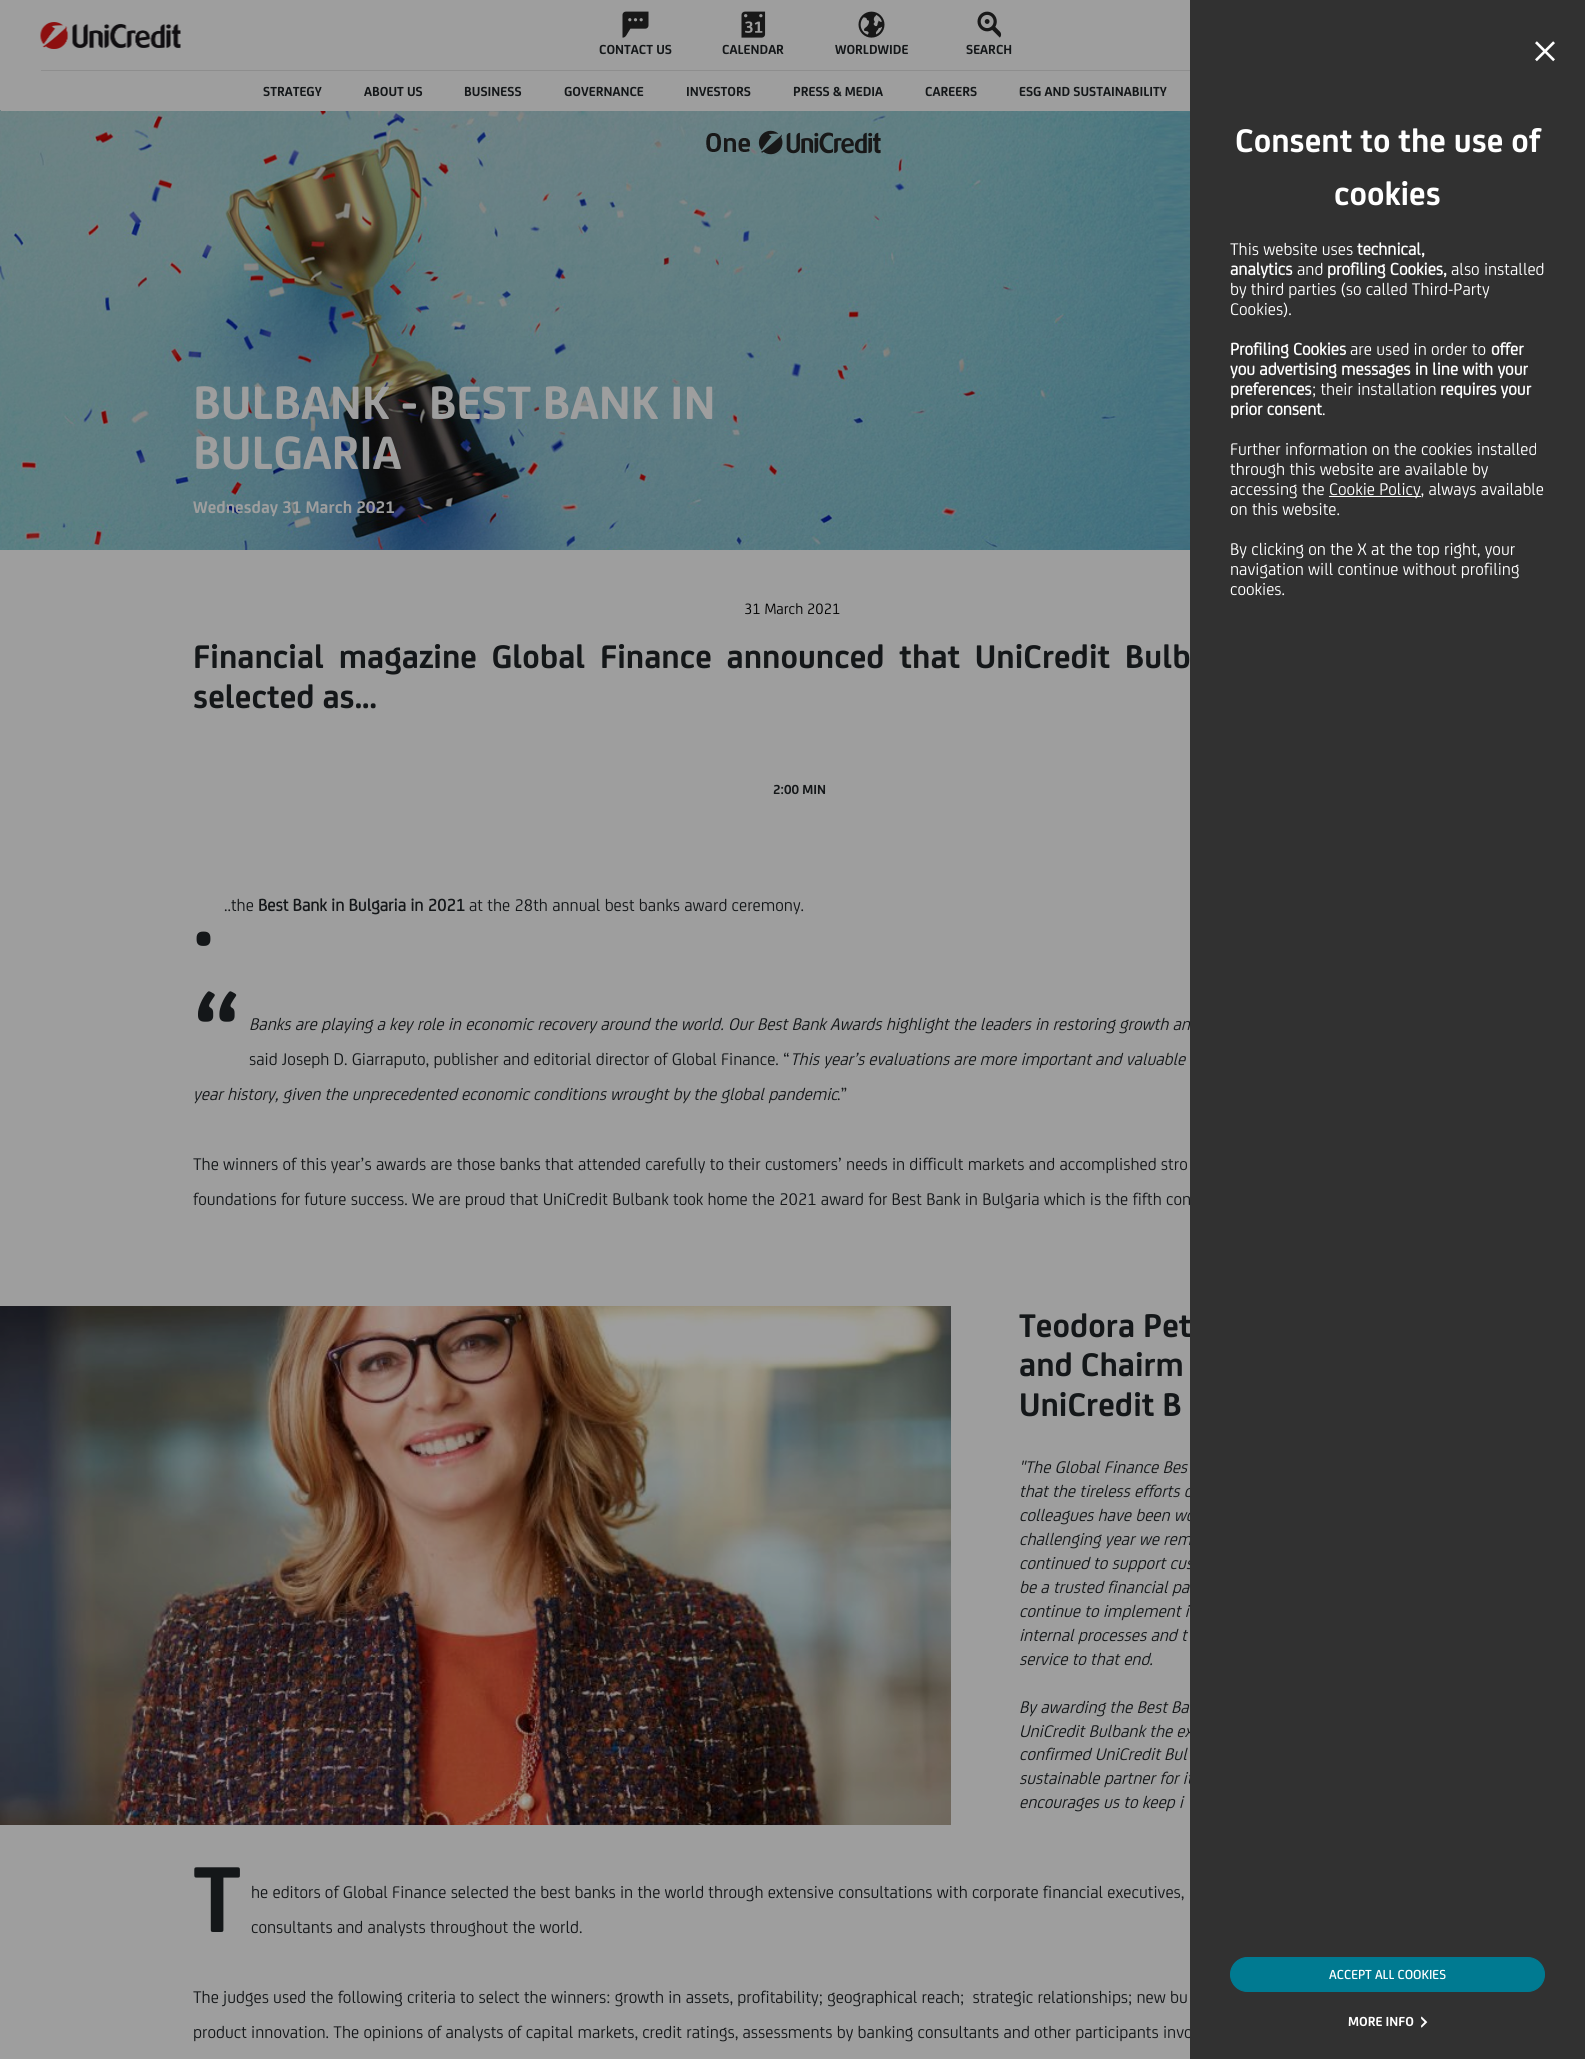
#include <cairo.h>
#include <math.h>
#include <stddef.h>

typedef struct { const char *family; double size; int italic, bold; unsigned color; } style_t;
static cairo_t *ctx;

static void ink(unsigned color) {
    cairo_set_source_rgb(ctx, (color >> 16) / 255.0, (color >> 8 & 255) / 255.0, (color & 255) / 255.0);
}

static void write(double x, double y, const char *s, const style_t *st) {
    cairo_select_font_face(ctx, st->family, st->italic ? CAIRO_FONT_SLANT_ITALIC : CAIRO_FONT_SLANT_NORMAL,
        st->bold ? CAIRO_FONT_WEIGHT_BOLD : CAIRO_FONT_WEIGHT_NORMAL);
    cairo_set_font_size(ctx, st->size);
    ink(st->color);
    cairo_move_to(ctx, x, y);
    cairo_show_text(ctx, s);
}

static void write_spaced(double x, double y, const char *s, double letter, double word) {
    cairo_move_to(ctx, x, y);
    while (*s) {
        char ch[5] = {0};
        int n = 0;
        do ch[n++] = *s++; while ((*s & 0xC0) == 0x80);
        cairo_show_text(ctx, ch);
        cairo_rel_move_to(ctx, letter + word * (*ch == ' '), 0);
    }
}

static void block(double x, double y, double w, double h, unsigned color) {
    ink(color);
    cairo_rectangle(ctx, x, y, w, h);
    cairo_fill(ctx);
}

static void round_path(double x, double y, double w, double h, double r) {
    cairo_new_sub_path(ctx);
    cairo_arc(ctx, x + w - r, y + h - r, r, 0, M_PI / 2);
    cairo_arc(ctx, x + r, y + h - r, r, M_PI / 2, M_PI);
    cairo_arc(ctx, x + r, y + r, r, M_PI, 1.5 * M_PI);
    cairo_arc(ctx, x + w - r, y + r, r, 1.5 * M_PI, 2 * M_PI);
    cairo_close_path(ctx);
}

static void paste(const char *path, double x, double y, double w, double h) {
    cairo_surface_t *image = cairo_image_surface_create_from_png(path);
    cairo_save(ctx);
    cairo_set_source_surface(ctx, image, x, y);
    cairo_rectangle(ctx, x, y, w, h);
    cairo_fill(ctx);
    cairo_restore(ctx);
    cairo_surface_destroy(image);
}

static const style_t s1 = {"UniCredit", 14, 0, 1, 0x141719};
static const style_t s2 = {"UniCredit", 50, 0, 1, 0x9e9e9e};
static const style_t s3 = {"UniCredit", 18, 0, 1, 0x9e9e9e};
static const style_t s4 = {"UniCredit", 18, 1, 0, 0x141719};
static const style_t s5 = {"UniCredit", 35, 0, 1, 0x141719};
static const style_t s6 = {"UniCredit", 18, 0, 0, 0x141719};
static const style_t s7 = {"UniCredit", 35, 0, 1, 0xffffff};
static const style_t s8 = {"UniCredit", 18, 0, 0, 0xffffff};
static const style_t s9 = {"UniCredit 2", 18, 0, 1, 0xffffff};
static const style_t s10 = {"UniCredit Medium", 14, 0, 0, 0xffffff};
static const style_t s11 = {"UniCredit", 14, 0, 1, 0xffffff};
static const style_t s12 = {"UniCredit", 16, 0, 0, 0x000000};
static const style_t s13 = {"UniCredit 2", 18, 0, 1, 0x141719};
static const style_t s14 = {"UniCredit", 100, 0, 1, 0x141719};

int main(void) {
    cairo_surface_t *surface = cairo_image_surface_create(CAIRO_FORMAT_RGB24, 1585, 2059);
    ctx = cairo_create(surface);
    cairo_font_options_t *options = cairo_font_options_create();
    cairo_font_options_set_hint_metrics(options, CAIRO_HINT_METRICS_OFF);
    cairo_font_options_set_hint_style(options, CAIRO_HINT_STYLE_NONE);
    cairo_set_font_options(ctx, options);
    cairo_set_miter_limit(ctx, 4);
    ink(0x9e9e9e);
    cairo_paint(ctx);
    paste("pic6.png", 0, 110, 1190, 440);
    block(1, 110, 1189, 1, 0x9e9e9e);
    paste("pic1.png", 40, 22, 141, 27);
    paste("pic2.png", 622, 11, 27, 27);
    write(599, 54, "CONTACT US", &s1);
    paste("pic3.png", 741, 11, 25, 27);
    write(722, 54, "CALENDAR", &s1);
    paste("pic4.png", 858, 11, 27, 27);
    write(835, 54, "WORLDWIDE", &s1);
    paste("pic5.png", 977, 11, 25, 27);
    write(966, 54, "SEARCH", &s1);
    block(41, 70, 1149, 1, 0x8e8e8e);
    write(263, 96, "STRATEGY", &s1);
    write(364, 96, "ABOUT US", &s1);
    write(464, 96, "BUSINESS", &s1);
    write(564, 96, "GOVERNANCE", &s1);
    write(686, 96, "INVESTORS", &s1);
    write(793, 96, "PRESS & MEDIA", &s1);
    write(925, 96, "CAREERS", &s1);
    write(1019, 96, "ESG AND SUSTAINABILITY", &s1);
    paste("pic7.png", 706, 130, 175, 25);
    write(193, 419, "BULBANK - BEST BANK IN", &s2);
    write(193, 469, "BULGARIA", &s2);
    write(193, 513, "Wednesday 31 March 2021", &s3);
    write(249, 1030, "Banks are playing a key role in economic recovery around the world. Our Best Bank Awards highlight the leaders in restoring growth an", &s4);
    write(1019, 1337, "Teodora Pet", &s5);
    write(1019, 1497, "that the tireless efforts o", &s4);
    write(1019, 1521, "colleagues have been wo", &s4);
    write(1019, 1545, "challenging year we rem", &s4);
    write(1019, 1569, "continued to support cus", &s4);
    write(1019, 1737, "UniCredit Bulbank the ex", &s4);
    write(1019, 1784, "sustainable partner for it", &s4);
    write(193, 2038, "product innovation. The opinions of analysts of capital markets, credit ratings, assessments by banking consultants and other participants invo", &s6);
    block(1190, 0, 395, 2059, 0x313131);
    paste("pic8.png", 1535, 41, 20, 21);
    write(1235, 152, "Consent to the use of", &s7);
    write(1334, 205, "cookies", &s7);
    write(1230, 255, "This website uses", &s8);
    write(1357, 255, "technical,", &s9);
    write(1230, 275, "analytics", &s9);
    write(1297, 275, "and", &s8);
    write(1327, 275, "profiling Cookies,", &s9);
    write(1451, 275, "also installed", &s8);
    write(1230, 295, "by third parties (so called Third-Party", &s8);
    write(1230, 315, "Cookies).", &s8);
    write(1230, 355, "Profiling Cookies", &s9);
    write(1350, 355, "are used in order to", &s8);
    write(1491, 355, "offer", &s9);
    write(1230, 375, "you advertising messages in line with your", &s9);
    write(1230, 395, "preferences", &s9);
    write(1312, 395, "; their installation", &s8);
    write(1440, 395, "requires your", &s9);
    write(1230, 415, "prior consent", &s9);
    write(1322, 415, ".", &s8);
    write(1230, 455, "Further information on the cookies installed", &s8);
    write(1230, 475, "through this website are available by", &s8);
    write(1230, 495, "accessing the", &s8);
    block(1329, 496, 92, 1, 0xffffff);
    write(1329, 495, "Cookie Policy, always available", &s8);
    write(1230, 515, "on this website.", &s8);
    write(1230, 555, "By clicking on the X at the top right, your", &s8);
    write(1230, 575, "navigation will continue without profiling", &s8);
    write(1230, 595, "cookies.", &s8);
    ink(0x007a91);
    round_path(1230.5, 1957.5, 314, 34, 17);
    cairo_fill_preserve(ctx);
    cairo_set_line_width(ctx, 1);
    cairo_stroke(ctx);
    write(1329, 1979, "ACCEPT ALL COOKIES", &s10);
    write(1348, 2026, "MORE INFO", &s11);
    paste("pic9.png", 1421, 2016, 7, 12);
    write(744, 614, "31 March 2021", &s12);
    cairo_select_font_face(ctx, "UniCredit", CAIRO_FONT_SLANT_NORMAL, CAIRO_FONT_WEIGHT_BOLD);
    cairo_set_font_size(ctx, 35);
    ink(0x141719);
    write_spaced(193, 668, "Financial magazine Global Finance announced that UniCredit Bulb", 0, 6.75);
    write(193, 708, "selected as...", &s5);
    write(773, 794, "2:00 MIN", &s1);
    write(224, 911, "..the", &s6);
    write(258, 911, "Best Bank in Bulgaria in 2021", &s13);
    write(469, 911, "at the 28th annual best banks award ceremony.", &s6);
    write(193, 945, ".", &s14);
    write(193, 1064, "“", &s14);
    write(249, 1065, "said Joseph D. Giarraputo, publisher and editorial director of Global Finance. “", &s6);
    write(790, 1065, "This year’s evaluations are more important and valuable", &s4);
    write(193, 1100, "year history, given the unprecedented economic conditions wrought by the global pandemic", &s4);
    write(837, 1100, ".”", &s6);
    write(193, 1170, "The winners of this year’s awards are those banks that attended carefully to their customers’ needs in difficult markets and accomplished stro", &s6);
    write(193, 1205, "foundations for future success. We are proud that UniCredit Bulbank took home the 2021 award for Best Bank in Bulgaria which is the fifth con", &s6);
    paste("pic10.png", 0, 1306, 951, 519);
    write(1019, 1376, "and Chairm", &s5);
    write(1019, 1416, "UniCredit B", &s5);
    write(1019, 1473, "\"The Global Finance Bes", &s4);
    write(1019, 1593, "be a trusted financial pa", &s4);
    write(1019, 1617, "continue to implement i", &s4);
    write(1019, 1641, "internal processes and t", &s4);
    write(1019, 1665, "service to that end.", &s4);
    write(1019, 1713, "By awarding the Best Ba", &s4);
    write(1019, 1760, "confirmed UniCredit Bul", &s4);
    write(1019, 1808, "encourages us to keep i", &s4);
    write(193, 1932, "T", &s14);
    write(251, 1898, "he editors of Global Finance selected the best banks in the world through extensive consultations with corporate financial executives,", &s6);
    write(251, 1933, "consultants and analysts throughout the world.", &s6);
    write(193, 2003, "The judges used the following criteria to select the winners: growth in assets, profitability; geographical reach;  strategic relationships; new bu", &s6);
    cairo_surface_write_to_png(surface, "screenshot.png");
    cairo_font_options_destroy(options);
    cairo_destroy(ctx);
    cairo_surface_destroy(surface);
    return 0;
}
